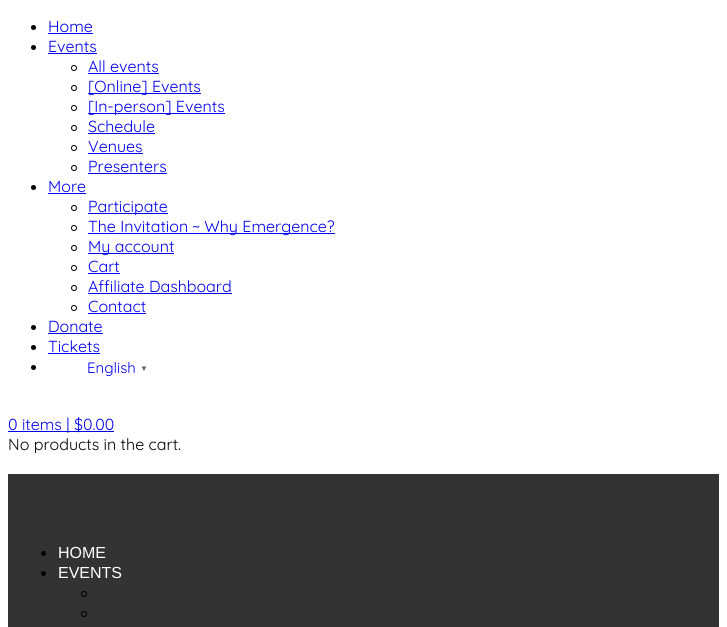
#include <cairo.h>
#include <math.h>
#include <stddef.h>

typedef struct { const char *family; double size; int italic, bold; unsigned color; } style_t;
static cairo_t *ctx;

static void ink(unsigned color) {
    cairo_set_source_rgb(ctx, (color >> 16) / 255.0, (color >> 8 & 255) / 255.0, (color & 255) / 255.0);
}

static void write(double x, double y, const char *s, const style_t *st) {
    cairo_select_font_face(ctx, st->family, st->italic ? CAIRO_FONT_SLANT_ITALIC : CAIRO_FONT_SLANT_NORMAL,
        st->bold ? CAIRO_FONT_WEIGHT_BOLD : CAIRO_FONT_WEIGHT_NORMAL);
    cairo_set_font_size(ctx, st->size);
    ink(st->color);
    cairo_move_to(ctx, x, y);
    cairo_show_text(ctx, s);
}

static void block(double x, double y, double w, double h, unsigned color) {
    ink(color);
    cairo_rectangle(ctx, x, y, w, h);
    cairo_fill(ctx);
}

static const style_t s1 = {"Quicksand", 16, 0, 0, 0x0000ee};
static const style_t s2 = {"Quicksand", 15, 0, 0, 0x0000ee};
static const style_t s3 = {"Liberation Sans", 8, 0, 1, 0x666666};
static const style_t s4 = {"Quicksand", 16, 0, 0, 0x000000};
static const style_t s5 = {"Liberation Sans", 16, 0, 0, 0xffffff};

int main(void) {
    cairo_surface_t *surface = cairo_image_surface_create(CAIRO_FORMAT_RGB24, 727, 627);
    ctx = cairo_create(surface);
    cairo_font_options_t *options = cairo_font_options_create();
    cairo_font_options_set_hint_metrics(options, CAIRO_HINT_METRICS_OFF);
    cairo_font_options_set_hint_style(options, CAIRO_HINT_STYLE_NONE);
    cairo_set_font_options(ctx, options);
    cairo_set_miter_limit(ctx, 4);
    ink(0xffffff);
    cairo_paint(ctx);
    ink(0x000000);
    cairo_arc(ctx, 33.5, 27.5, 2.5, 0, 2 * M_PI);
    cairo_fill(ctx);
    write(48, 32, "Home", &s1);
    block(48, 33, 45, 1, 0x0000ee);
    ink(0x000000);
    cairo_new_path(ctx);
    cairo_arc(ctx, 33.5, 47.5, 2.5, 0, 2 * M_PI);
    cairo_fill(ctx);
    write(48, 52, "Events", &s1);
    block(48, 53, 49, 1, 0x0000ee);
    cairo_new_path(ctx);
    cairo_arc(ctx, 74, 68, 2.5, 0, 2 * M_PI);
    ink(0x000000);
    cairo_set_line_width(ctx, 1);
    cairo_stroke(ctx);
    write(88, 72, "All events", &s1);
    block(88, 73, 71, 1, 0x0000ee);
    cairo_new_path(ctx);
    cairo_arc(ctx, 74, 88, 2.5, 0, 2 * M_PI);
    ink(0x000000);
    cairo_stroke(ctx);
    block(88, 93, 113, 1, 0x0000ee);
    write(88, 92, "[Online] Events", &s1);
    cairo_new_path(ctx);
    cairo_arc(ctx, 74, 108, 2.5, 0, 2 * M_PI);
    ink(0x000000);
    cairo_stroke(ctx);
    block(88, 113, 137, 1, 0x0000ee);
    write(88, 112, "[In-person] Events", &s1);
    cairo_new_path(ctx);
    cairo_arc(ctx, 74, 128, 2.5, 0, 2 * M_PI);
    ink(0x000000);
    cairo_stroke(ctx);
    write(88, 132, "Schedule", &s1);
    block(88, 133, 67, 1, 0x0000ee);
    cairo_new_path(ctx);
    cairo_arc(ctx, 74, 148, 2.5, 0, 2 * M_PI);
    ink(0x000000);
    cairo_stroke(ctx);
    write(88, 152, "Venues", &s1);
    block(88, 153, 55, 1, 0x0000ee);
    cairo_new_path(ctx);
    cairo_arc(ctx, 74, 168, 2.5, 0, 2 * M_PI);
    ink(0x000000);
    cairo_stroke(ctx);
    write(88, 172, "Presenters", &s1);
    block(88, 173, 79, 1, 0x0000ee);
    ink(0x000000);
    cairo_new_path(ctx);
    cairo_arc(ctx, 33.5, 187.5, 2.5, 0, 2 * M_PI);
    cairo_fill(ctx);
    write(48, 192, "More", &s1);
    block(48, 193, 38, 1, 0x0000ee);
    cairo_new_path(ctx);
    cairo_arc(ctx, 74, 208, 2.5, 0, 2 * M_PI);
    ink(0x000000);
    cairo_stroke(ctx);
    block(88, 213, 80, 1, 0x0000ee);
    write(88, 212, "Participate", &s1);
    cairo_new_path(ctx);
    cairo_arc(ctx, 74, 228, 2.5, 0, 2 * M_PI);
    ink(0x000000);
    cairo_stroke(ctx);
    block(88, 233, 247, 1, 0x0000ee);
    write(88, 232, "The Invitation ~ Why Emergence?", &s1);
    cairo_new_path(ctx);
    cairo_arc(ctx, 74, 248, 2.5, 0, 2 * M_PI);
    ink(0x000000);
    cairo_stroke(ctx);
    block(88, 253, 86, 1, 0x0000ee);
    write(88, 252, "My account", &s1);
    cairo_new_path(ctx);
    cairo_arc(ctx, 74, 268, 2.5, 0, 2 * M_PI);
    ink(0x000000);
    cairo_stroke(ctx);
    write(88, 272, "Cart", &s1);
    block(88, 273, 32, 1, 0x0000ee);
    cairo_new_path(ctx);
    cairo_arc(ctx, 74, 288, 2.5, 0, 2 * M_PI);
    ink(0x000000);
    cairo_stroke(ctx);
    write(88, 292, "Affiliate Dashboard", &s1);
    block(88, 293, 144, 1, 0x0000ee);
    cairo_new_path(ctx);
    cairo_arc(ctx, 74, 308, 2.5, 0, 2 * M_PI);
    ink(0x000000);
    cairo_stroke(ctx);
    write(88, 312, "Contact", &s1);
    block(88, 313, 58, 1, 0x0000ee);
    ink(0x000000);
    cairo_new_path(ctx);
    cairo_arc(ctx, 33.5, 327.5, 2.5, 0, 2 * M_PI);
    cairo_fill(ctx);
    write(48, 332, "Donate", &s1);
    block(48, 333, 55, 1, 0x0000ee);
    ink(0x000000);
    cairo_new_path(ctx);
    cairo_arc(ctx, 33.5, 347.5, 2.5, 0, 2 * M_PI);
    cairo_fill(ctx);
    write(48, 352, "Tickets", &s1);
    block(48, 353, 52, 1, 0x0000ee);
    ink(0x000000);
    cairo_new_path(ctx);
    cairo_arc(ctx, 33.5, 367.5, 2.5, 0, 2 * M_PI);
    cairo_fill(ctx);
    write(87, 373, "English", &s2);
    write(140, 371, "▼", &s3);
    block(8, 431, 106, 1, 0x0000ee);
    write(8, 430, "0 items | $0.00", &s1);
    write(8, 450, "No products in the cart.", &s4);
    block(8, 474, 711, 153, 0x333333);
    ink(0x000000);
    cairo_new_path(ctx);
    cairo_arc(ctx, 43.5, 553.5, 2.5, 0, 2 * M_PI);
    cairo_fill(ctx);
    write(58, 558, "HOME", &s5);
    ink(0x000000);
    cairo_new_path(ctx);
    cairo_arc(ctx, 43.5, 573.5, 2.5, 0, 2 * M_PI);
    cairo_fill(ctx);
    write(58, 578, "EVENTS", &s5);
    cairo_new_path(ctx);
    cairo_arc(ctx, 84, 594, 2.5, 0, 2 * M_PI);
    ink(0x000000);
    cairo_stroke(ctx);
    cairo_arc(ctx, 84, 614, 2.5, 0, 2 * M_PI);
    cairo_stroke(ctx);
    cairo_surface_write_to_png(surface, "screenshot.png");
    cairo_font_options_destroy(options);
    cairo_destroy(ctx);
    cairo_surface_destroy(surface);
    return 0;
}
